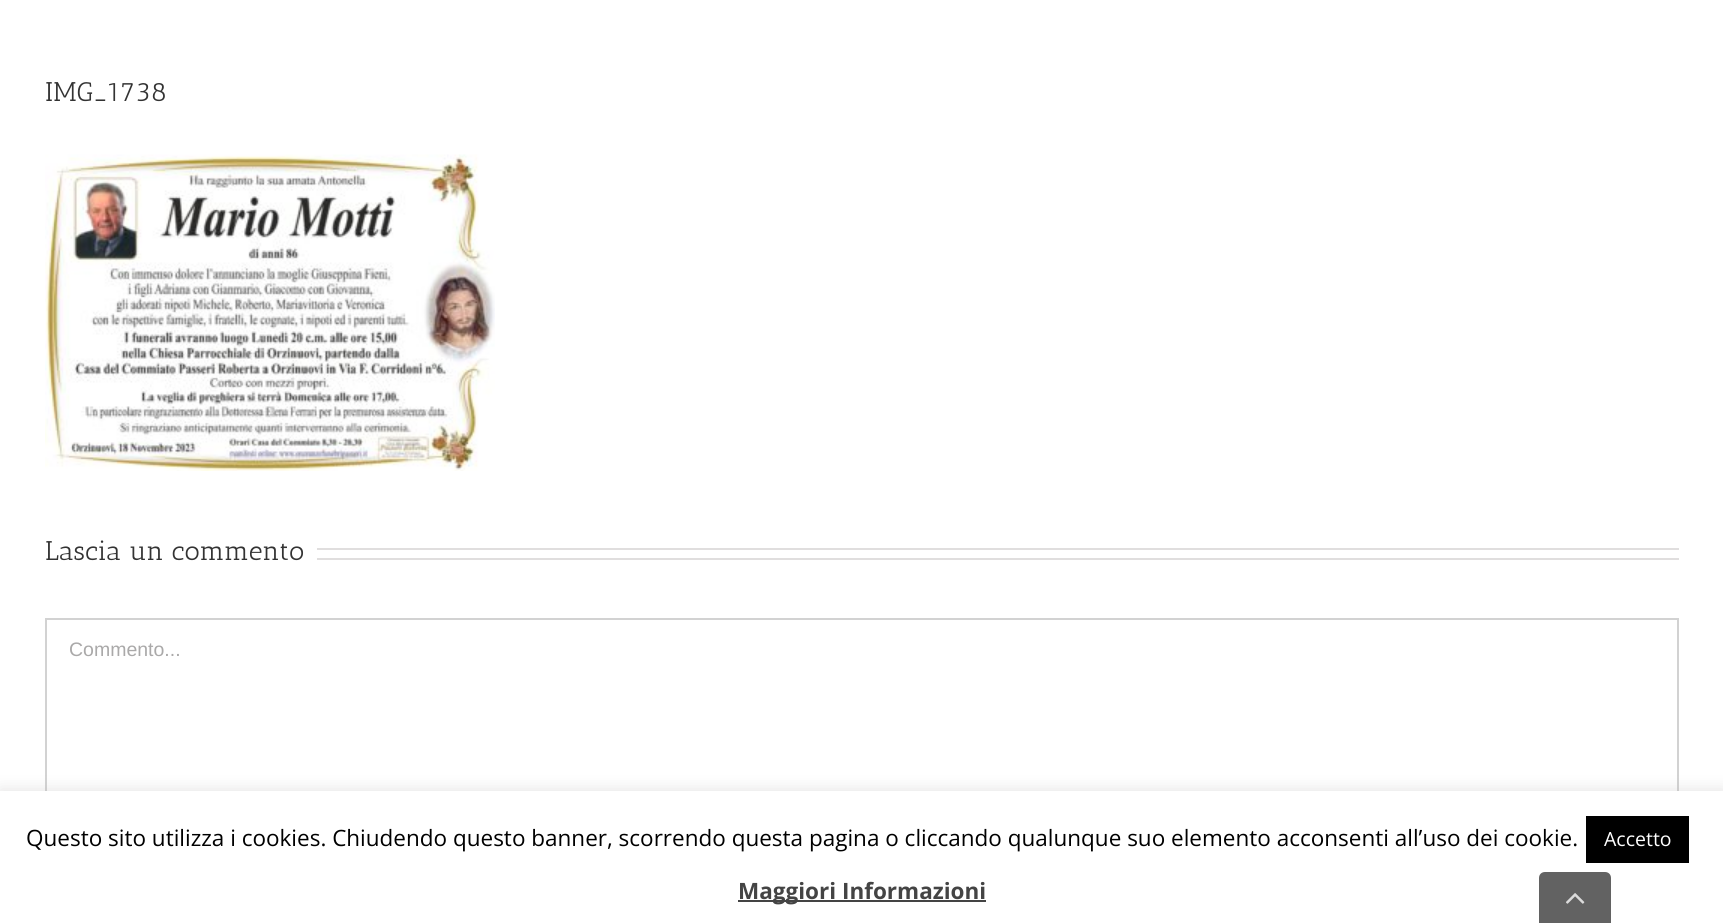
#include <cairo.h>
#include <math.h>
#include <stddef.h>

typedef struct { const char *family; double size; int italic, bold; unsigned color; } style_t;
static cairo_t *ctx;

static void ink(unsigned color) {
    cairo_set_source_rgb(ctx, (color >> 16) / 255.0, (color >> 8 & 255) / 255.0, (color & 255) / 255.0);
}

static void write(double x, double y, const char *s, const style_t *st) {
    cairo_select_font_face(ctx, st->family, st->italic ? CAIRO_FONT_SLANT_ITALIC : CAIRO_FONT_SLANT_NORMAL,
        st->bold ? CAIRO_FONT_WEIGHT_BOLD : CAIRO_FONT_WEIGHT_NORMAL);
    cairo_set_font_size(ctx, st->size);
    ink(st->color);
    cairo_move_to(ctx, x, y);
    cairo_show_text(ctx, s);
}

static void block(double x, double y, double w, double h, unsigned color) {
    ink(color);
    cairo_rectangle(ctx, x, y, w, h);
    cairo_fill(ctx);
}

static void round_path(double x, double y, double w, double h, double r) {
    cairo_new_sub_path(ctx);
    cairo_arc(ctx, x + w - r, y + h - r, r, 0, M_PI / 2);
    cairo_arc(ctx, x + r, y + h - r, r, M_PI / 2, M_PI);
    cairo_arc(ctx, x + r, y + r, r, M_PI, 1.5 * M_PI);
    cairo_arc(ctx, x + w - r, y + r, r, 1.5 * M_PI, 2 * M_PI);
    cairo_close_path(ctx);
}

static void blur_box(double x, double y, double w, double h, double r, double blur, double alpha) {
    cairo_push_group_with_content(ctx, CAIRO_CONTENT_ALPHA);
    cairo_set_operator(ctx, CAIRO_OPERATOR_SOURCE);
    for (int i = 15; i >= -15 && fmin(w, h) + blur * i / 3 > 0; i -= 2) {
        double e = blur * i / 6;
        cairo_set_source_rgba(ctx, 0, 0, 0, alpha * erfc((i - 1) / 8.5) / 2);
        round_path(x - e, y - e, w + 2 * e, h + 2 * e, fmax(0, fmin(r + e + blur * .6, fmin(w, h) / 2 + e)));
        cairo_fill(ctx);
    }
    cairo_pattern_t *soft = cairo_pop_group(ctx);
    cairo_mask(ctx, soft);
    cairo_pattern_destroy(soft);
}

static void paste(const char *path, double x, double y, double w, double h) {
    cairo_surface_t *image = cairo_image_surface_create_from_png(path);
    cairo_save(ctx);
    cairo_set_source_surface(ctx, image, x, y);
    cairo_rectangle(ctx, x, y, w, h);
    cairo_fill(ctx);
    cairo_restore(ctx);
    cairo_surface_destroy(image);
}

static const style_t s1 = {"Antic Slab", 27, 0, 0, 0x333333};
static const style_t s2 = {"Liberation Sans", 19.5, 0, 0, 0xaaa9a9};
static const style_t s3 = {"Open Sans", 22.5, 0, 0, 0x000000};
static const style_t s4 = {"Open Sans", 19.5, 0, 0, 0xffffff};
static const style_t s5 = {"Open Sans", 22.5, 0, 1, 0x444444};

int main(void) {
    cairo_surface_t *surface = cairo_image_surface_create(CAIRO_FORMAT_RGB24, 1723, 923);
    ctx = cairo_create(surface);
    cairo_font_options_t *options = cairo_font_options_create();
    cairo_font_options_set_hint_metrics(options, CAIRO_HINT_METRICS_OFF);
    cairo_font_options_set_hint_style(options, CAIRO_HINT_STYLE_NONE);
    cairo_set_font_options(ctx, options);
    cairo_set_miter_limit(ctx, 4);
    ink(0xffffff);
    cairo_paint(ctx);
    write(45, 101, "IMG_1738", &s1);
    paste("pic1.png", 45, 154, 450, 317);
    write(45, 560, "Lascia un commento", &s1);
    block(317, 548, 1362, 2, 0xe0dede);
    block(317, 558, 1362, 2, 0xe0dede);
    cairo_rectangle(ctx, 46, 619, 1632, 223);
    ink(0xd2d2d2);
    cairo_stroke(ctx);
    write(69, 656, "Commento...", &s2);
    ink(0xacabab);
    blur_box(0, 789, 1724, 134, 0, 7.5, 0.3);
    block(0, 791, 1723, 132, 0xffffff);
    write(26, 846, "Questo sito utilizza i cookies. Chiudendo questo banner, scorrendo questa pagina o cliccando qualunque suo elemento acconsenti all’uso dei cookie.", &s3);
    block(1586, 816, 103, 47, 0x000000);
    write(1604, 846, "Accetto", &s4);
    block(738, 900, 248, 2, 0x444444);
    write(738, 899, "Maggiori Informazioni", &s5);
    ink(0x626262);
    cairo_new_path(ctx);
    cairo_move_to(ctx, 1545, 872);
    cairo_line_to(ctx, 1605, 872);
    cairo_curve_to(ctx, 1608.5, 872, 1611, 874.5, 1611, 878);
    cairo_line_to(ctx, 1611, 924);
    cairo_line_to(ctx, 1539, 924);
    cairo_line_to(ctx, 1539, 878);
    cairo_curve_to(ctx, 1539, 874.5, 1541.5, 872, 1545, 872);
    cairo_close_path(ctx);
    cairo_fill(ctx);
    paste("pic2.png", 1566, 893, 19, 11);
    cairo_surface_write_to_png(surface, "screenshot.png");
    cairo_font_options_destroy(options);
    cairo_destroy(ctx);
    cairo_surface_destroy(surface);
    return 0;
}
